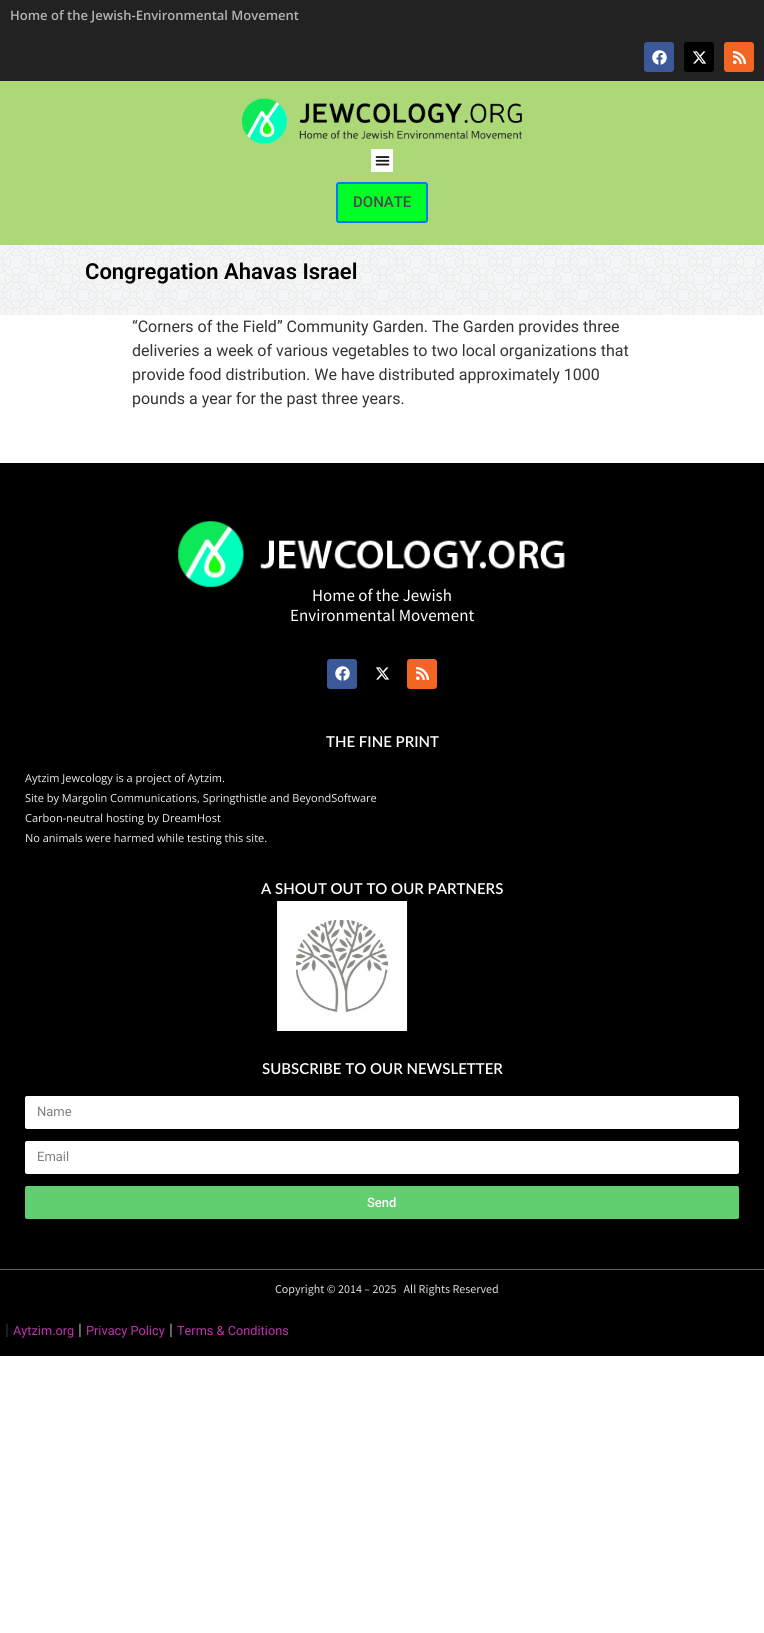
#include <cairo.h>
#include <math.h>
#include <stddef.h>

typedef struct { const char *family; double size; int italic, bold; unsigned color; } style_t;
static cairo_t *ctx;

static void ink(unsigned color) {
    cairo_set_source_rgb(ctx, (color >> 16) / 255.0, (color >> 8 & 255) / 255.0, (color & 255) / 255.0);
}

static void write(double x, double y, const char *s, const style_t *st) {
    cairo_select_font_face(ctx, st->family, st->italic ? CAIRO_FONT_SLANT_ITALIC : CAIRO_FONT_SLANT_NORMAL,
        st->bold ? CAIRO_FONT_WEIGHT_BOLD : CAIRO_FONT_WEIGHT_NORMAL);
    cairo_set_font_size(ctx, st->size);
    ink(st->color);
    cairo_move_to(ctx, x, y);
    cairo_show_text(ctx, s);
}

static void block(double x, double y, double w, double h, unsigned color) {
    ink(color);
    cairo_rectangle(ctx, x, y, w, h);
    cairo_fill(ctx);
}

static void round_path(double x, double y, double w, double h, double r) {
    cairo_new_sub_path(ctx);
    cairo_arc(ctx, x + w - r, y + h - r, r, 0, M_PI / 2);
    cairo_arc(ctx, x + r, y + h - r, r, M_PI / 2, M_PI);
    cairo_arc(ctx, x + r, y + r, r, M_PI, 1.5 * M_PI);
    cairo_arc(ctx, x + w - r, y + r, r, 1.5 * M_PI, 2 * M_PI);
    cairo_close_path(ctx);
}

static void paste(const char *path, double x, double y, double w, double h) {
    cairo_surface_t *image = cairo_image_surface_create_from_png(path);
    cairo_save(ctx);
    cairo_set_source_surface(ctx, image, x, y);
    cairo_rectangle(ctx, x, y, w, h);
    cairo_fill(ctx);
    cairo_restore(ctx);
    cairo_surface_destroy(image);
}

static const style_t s1 = {"Open Sans SemiBold", 13, 0, 0, 0xb3b3b3};
static const style_t s2 = {"Roboto Medium", 15, 0, 0, 0x4e4a4a};
static const style_t s3 = {"Roboto SemiBold", 22, 0, 0, 0x000000};
static const style_t s4 = {"Roboto", 16, 0, 0, 0x333333};
static const style_t s5 = {"Source Sans Pro", 17, 0, 0, 0xffffff};
static const style_t s6 = {"Lato SemiBold", 15, 0, 0, 0xffffff};
static const style_t s7 = {"Open Sans", 11, 0, 0, 0xeeeeee};
static const style_t s8 = {"Roboto", 13, 0, 0, 0x808080};
static const style_t s9 = {"Roboto Medium", 13, 0, 0, 0xffffff};
static const style_t s10 = {"Source Sans Pro", 12, 0, 0, 0xdfdfdf};
static const style_t s11 = {"Roboto", 12.75, 0, 0, 0xbd34ad};
static const style_t s12 = {"Roboto", 16, 0, 0, 0xaaaaaa};

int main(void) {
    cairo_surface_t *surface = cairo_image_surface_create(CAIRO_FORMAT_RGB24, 764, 1633);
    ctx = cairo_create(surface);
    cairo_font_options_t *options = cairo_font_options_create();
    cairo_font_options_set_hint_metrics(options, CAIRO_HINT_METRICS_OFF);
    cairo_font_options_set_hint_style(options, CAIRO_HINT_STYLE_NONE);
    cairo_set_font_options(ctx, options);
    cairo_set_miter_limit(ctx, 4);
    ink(0xffffff);
    cairo_paint(ctx);
    block(0, 0, 764, 81, 0x222222);
    write(10, 20, "Home of the Jewish-Environmental Movement", &s1);
    ink(0x3b5998);
    round_path(644, 42, 30, 30, 3);
    cairo_fill(ctx);
    paste("pic1.png", 652, 50, 15, 15);
    ink(0x000000);
    round_path(684, 42, 30, 30, 3);
    cairo_fill(ctx);
    paste("pic2.png", 692, 51, 15, 13);
    ink(0xf26522);
    round_path(724, 42, 30, 30, 3);
    cairo_fill(ctx);
    paste("pic3.png", 732, 51, 14, 14);
    block(0, 81, 764, 164, 0xacd878);
    paste("pic4.png", 242, 98, 280, 46);
    block(371, 149, 22, 23, 0xffffff);
    paste("pic5.png", 375, 156, 15, 10);
    ink(0x00ff27);
    round_path(337, 183, 90, 39, 2);
    cairo_fill_preserve(ctx);
    ink(0x0278ff);
    cairo_stroke(ctx);
    write(353, 207, "DONATE", &s2);
    paste("pic6.png", 0, 245, 764, 70);
    write(85, 279, "Congregation Ahavas Israel", &s3);
    write(132, 332, "“Corners of the Field” Community Garden. The Garden provides three", &s4);
    write(132, 356, "deliveries a week of various vegetables to two local organizations that", &s4);
    write(132, 380, "provide food distribution. We have distributed approximately 1000", &s4);
    write(132, 404, "pounds a year for the past three years.", &s4);
    block(0, 463, 764, 806, 0x000000);
    paste("pic7.png", 178, 521, 387, 66);
    write(312, 601, "Home of the Jewish", &s5);
    write(290, 621, "Environmental Movement", &s5);
    ink(0x3b5998);
    round_path(327, 659, 30, 30, 3);
    cairo_fill(ctx);
    paste("pic1.png", 335, 666, 15, 15);
    paste("pic2.png", 375, 667, 15, 13);
    ink(0xf26522);
    round_path(407, 659, 30, 30, 3);
    cairo_fill(ctx);
    paste("pic3.png", 415, 667, 14, 14);
    write(326, 747, "THE FINE PRINT", &s6);
    write(25, 782, "Aytzim Jewcology is a project of Aytzim.", &s7);
    write(25, 802, "Site by Margolin Communications, Springthistle and BeyondSoftware", &s7);
    write(25, 822, "Carbon-neutral hosting by DreamHost", &s7);
    write(25, 842, "No animals were harmed while testing this site.", &s7);
    write(261, 894, "A SHOUT OUT TO OUR PARTNERS", &s6);
    paste("pic8.png", 277, 901, 131, 130);
    write(262, 1074, "SUBSCRIBE TO OUR NEWSLETTER", &s6);
    round_path(25, 1096, 714, 33, 2);
    cairo_fill(ctx);
    write(37, 1116, "Name", &s8);
    ink(0xffffff);
    round_path(25, 1141, 714, 33, 2);
    cairo_fill(ctx);
    write(37, 1161, "Email", &s8);
    ink(0x61ce70);
    round_path(25, 1186, 714, 33, 2);
    cairo_fill(ctx);
    write(367, 1207, "Send", &s9);
    block(0, 1270, 764, 86, 0x000000);
    block(0, 1269, 764, 1, 0x636363);
    write(275, 1293, "Copyright © 2014 – 2025   All Rights Reserved", &s10);
    write(5, 1335, "|", &s4);
    write(13, 1335, "Aytzim.org", &s11);
    write(78, 1335, "|", &s12);
    write(86, 1335, "Privacy Policy", &s11);
    write(169, 1335, "|", &s12);
    write(177, 1335, "Terms & Conditions", &s11);
    cairo_surface_write_to_png(surface, "screenshot.png");
    cairo_font_options_destroy(options);
    cairo_destroy(ctx);
    cairo_surface_destroy(surface);
    return 0;
}
